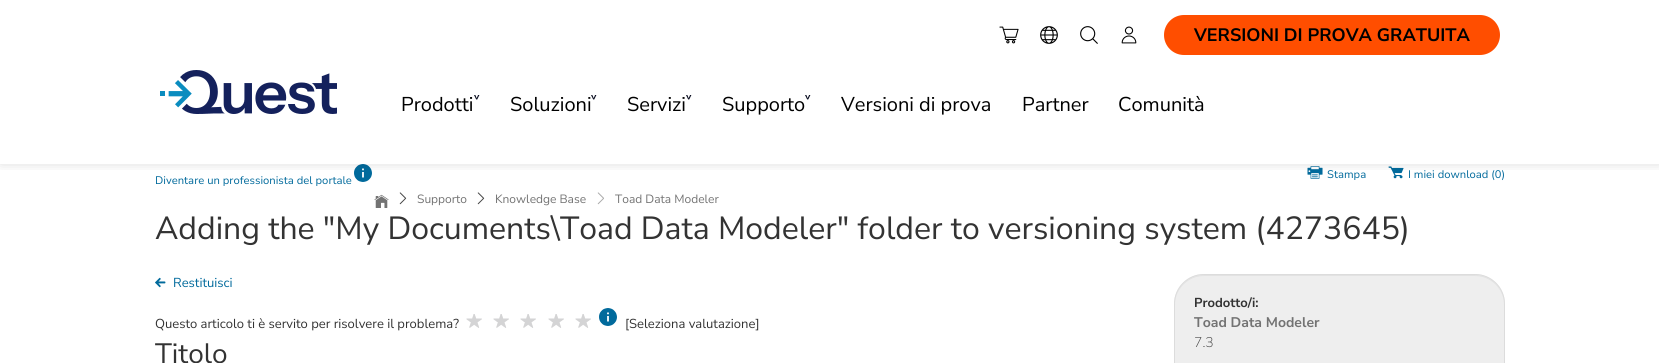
#include <cairo.h>
#include <math.h>
#include <stddef.h>

typedef struct { const char *family; double size; int italic, bold; unsigned color; } style_t;
static cairo_t *ctx;

static void ink(unsigned color) {
    cairo_set_source_rgb(ctx, (color >> 16) / 255.0, (color >> 8 & 255) / 255.0, (color & 255) / 255.0);
}

static void write(double x, double y, const char *s, const style_t *st) {
    cairo_select_font_face(ctx, st->family, st->italic ? CAIRO_FONT_SLANT_ITALIC : CAIRO_FONT_SLANT_NORMAL,
        st->bold ? CAIRO_FONT_WEIGHT_BOLD : CAIRO_FONT_WEIGHT_NORMAL);
    cairo_set_font_size(ctx, st->size);
    ink(st->color);
    cairo_move_to(ctx, x, y);
    cairo_show_text(ctx, s);
}

static void round_path(double x, double y, double w, double h, double r) {
    cairo_new_sub_path(ctx);
    cairo_arc(ctx, x + w - r, y + h - r, r, 0, M_PI / 2);
    cairo_arc(ctx, x + r, y + h - r, r, M_PI / 2, M_PI);
    cairo_arc(ctx, x + r, y + r, r, M_PI, 1.5 * M_PI);
    cairo_arc(ctx, x + w - r, y + r, r, 1.5 * M_PI, 2 * M_PI);
    cairo_close_path(ctx);
}

static void blur_box(double x, double y, double w, double h, double r, double blur, double alpha) {
    cairo_push_group_with_content(ctx, CAIRO_CONTENT_ALPHA);
    cairo_set_operator(ctx, CAIRO_OPERATOR_SOURCE);
    for (int i = 15; i >= -15 && fmin(w, h) + blur * i / 3 > 0; i -= 2) {
        double e = blur * i / 6;
        cairo_set_source_rgba(ctx, 0, 0, 0, alpha * erfc((i - 1) / 8.5) / 2);
        round_path(x - e, y - e, w + 2 * e, h + 2 * e, fmax(0, fmin(r + e + blur * .6, fmin(w, h) / 2 + e)));
        cairo_fill(ctx);
    }
    cairo_pattern_t *soft = cairo_pop_group(ctx);
    cairo_mask(ctx, soft);
    cairo_pattern_destroy(soft);
}

static void paste(const char *path, double x, double y, double w, double h) {
    cairo_surface_t *image = cairo_image_surface_create_from_png(path);
    cairo_save(ctx);
    cairo_set_source_surface(ctx, image, x, y);
    cairo_rectangle(ctx, x, y, w, h);
    cairo_fill(ctx);
    cairo_restore(ctx);
    cairo_surface_destroy(image);
}

static const style_t s1 = {"Nunito Sans", 18, 0, 1, 0x000000};
static const style_t s2 = {"Nunito Sans", 20, 0, 0, 0x000000};
static const style_t s3 = {"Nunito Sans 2", 11, 0, 0, 0x016a9c};
static const style_t s4 = {"Nunito Sans", 12, 0, 0, 0x737373};
static const style_t s5 = {"Nunito Sans", 32, 0, 0, 0x333333};
static const style_t s6 = {"Nunito Sans", 13, 0, 0, 0x016a9c};
static const style_t s7 = {"Nunito Sans", 13, 0, 0, 0x333333};
static const style_t s8 = {"Nunito Sans", 28, 0, 0, 0x333333};
static const style_t s9 = {"Nunito Sans", 13, 0, 1, 0x333333};
static const style_t s10 = {"Nunito Sans", 14, 0, 1, 0x737373};
static const style_t s11 = {"Nunito Sans ExtraLight", 14, 0, 0, 0x333333};

int main(void) {
    cairo_surface_t *surface = cairo_image_surface_create(CAIRO_FORMAT_RGB24, 1659, 363);
    ctx = cairo_create(surface);
    cairo_font_options_t *options = cairo_font_options_create();
    cairo_font_options_set_hint_metrics(options, CAIRO_HINT_METRICS_OFF);
    cairo_font_options_set_hint_style(options, CAIRO_HINT_STYLE_NONE);
    cairo_set_font_options(ctx, options);
    cairo_set_miter_limit(ctx, 4);
    ink(0xffffff);
    cairo_paint(ctx);
    paste("pic7.png", 354, 164, 18, 18);
    paste("pic8.png", 1307, 166, 16, 13);
    paste("pic9.png", 1388, 166, 16, 13);
    cairo_save(ctx);
    cairo_rectangle(ctx, 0, 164, 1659, 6);
    cairo_clip(ctx);
    ink(0x000000);
    blur_box(1, -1, 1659, 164, 0, 6, 0.16);
    cairo_restore(ctx);
    paste("pic1.png", 999, 26, 20, 18);
    paste("pic2.png", 1040, 26, 18, 18);
    paste("pic3.png", 1080, 26, 18, 18);
    paste("pic4.png", 1121, 26, 16, 18);
    ink(0xff4e00);
    round_path(1164, 15, 336, 40, 20);
    cairo_fill(ctx);
    write(1194, 41, "VERSIONI DI PROVA GRATUITA", &s1);
    paste("pic5.png", 160, 70, 177, 44);
    write(401, 111, "Prodotti", &s2);
    paste("pic6.png", 474, 95, 6, 5);
    write(510, 111, "Soluzioni", &s2);
    paste("pic6.png", 591, 95, 6, 5);
    write(627, 111, "Servizi", &s2);
    paste("pic6.png", 686, 95, 6, 5);
    write(722, 111, "Supporto", &s2);
    paste("pic6.png", 805, 95, 6, 5);
    write(841, 111, "Versioni di prova", &s2);
    write(1022, 111, "Partner", &s2);
    write(1118, 111, "Comunità", &s2);
    write(155, 184, "Diventare un professionista del portale", &s3);
    write(1327, 178, "Stampa", &s3);
    write(1408, 178, "I miei download (0)", &s3);
    paste("pic10.png", 374, 194, 15, 14);
    paste("pic11.png", 399, 192, 8, 13);
    write(417, 203, "Supporto", &s4);
    paste("pic11.png", 477, 192, 8, 13);
    write(495, 203, "Knowledge Base", &s4);
    paste("pic12.png", 597, 192, 7, 13);
    write(615, 203, "Toad Data Modeler", &s4);
    write(155, 239, "Adding the \"My Documents\\Toad Data Modeler\" folder to versioning system (4273645)", &s5);
    paste("pic13.png", 155, 277, 11, 11);
    write(173, 287, "Restituisci", &s6);
    write(155, 328, "Questo articolo ti è servito per risolvere il problema?", &s7);
    paste("pic14.png", 466, 314, 16, 14);
    paste("pic14.png", 493, 314, 16, 14);
    paste("pic14.png", 520, 314, 16, 14);
    paste("pic14.png", 548, 314, 16, 14);
    paste("pic14.png", 575, 314, 16, 14);
    paste("pic7.png", 599, 308, 18, 18);
    write(625, 328, "[Seleziona valutazione]", &s7);
    write(155, 363, "Titolo", &s8);
    ink(0xeeeeee);
    round_path(1174, 274, 331, 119, 30);
    cairo_fill(ctx);
    ink(0xe2e2e2);
    cairo_new_path(ctx);
    cairo_move_to(ctx, 1204, 276);
    cairo_line_to(ctx, 1475, 276);
    cairo_curve_to(ctx, 1491, 276, 1504, 289, 1504, 305);
    cairo_line_to(ctx, 1504, 304);
    cairo_curve_to(ctx, 1504, 288, 1491, 275, 1475, 275);
    cairo_line_to(ctx, 1204, 275);
    cairo_curve_to(ctx, 1188, 275, 1175, 288, 1175, 304);
    cairo_line_to(ctx, 1175, 305);
    cairo_curve_to(ctx, 1175, 289, 1188, 276, 1204, 276);
    cairo_close_path(ctx);
    cairo_fill(ctx);
    round_path(1174.5, 274.5, 330, 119, 29.5);
    ink(0xdcdcdc);
    cairo_set_line_width(ctx, 1);
    cairo_stroke(ctx);
    write(1194, 307, "Prodotto/i:", &s9);
    write(1194, 327, "Toad Data Modeler", &s10);
    write(1194, 347, "7.3", &s11);
    cairo_surface_write_to_png(surface, "screenshot.png");
    cairo_font_options_destroy(options);
    cairo_destroy(ctx);
    cairo_surface_destroy(surface);
    return 0;
}
